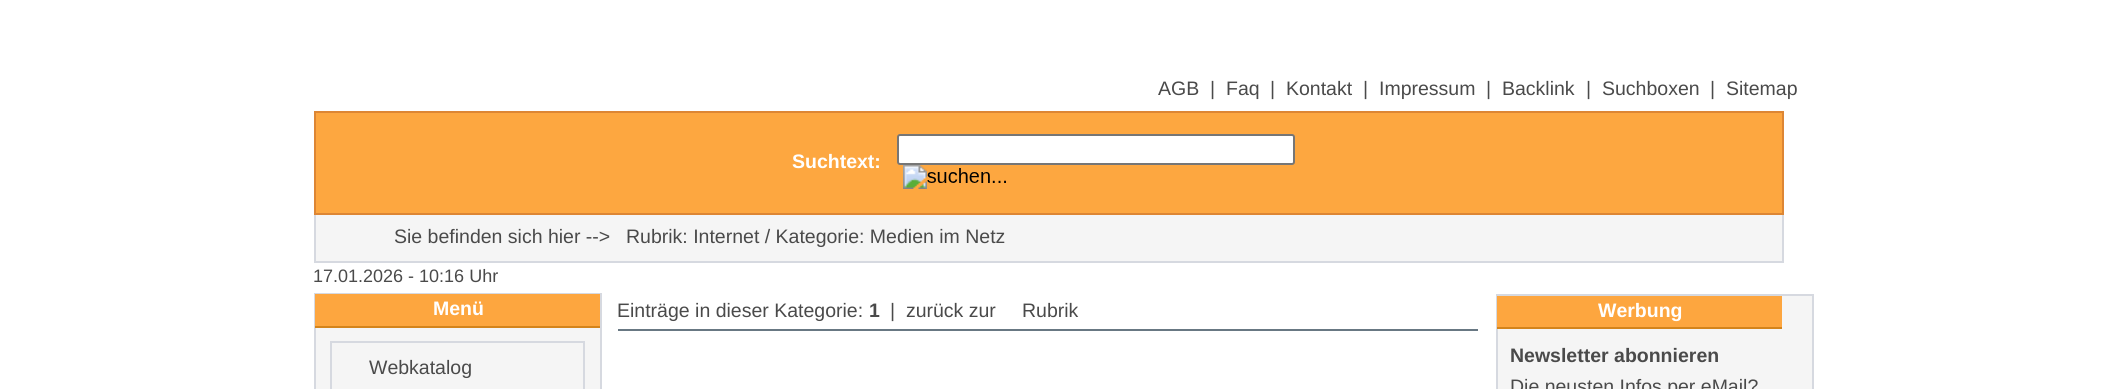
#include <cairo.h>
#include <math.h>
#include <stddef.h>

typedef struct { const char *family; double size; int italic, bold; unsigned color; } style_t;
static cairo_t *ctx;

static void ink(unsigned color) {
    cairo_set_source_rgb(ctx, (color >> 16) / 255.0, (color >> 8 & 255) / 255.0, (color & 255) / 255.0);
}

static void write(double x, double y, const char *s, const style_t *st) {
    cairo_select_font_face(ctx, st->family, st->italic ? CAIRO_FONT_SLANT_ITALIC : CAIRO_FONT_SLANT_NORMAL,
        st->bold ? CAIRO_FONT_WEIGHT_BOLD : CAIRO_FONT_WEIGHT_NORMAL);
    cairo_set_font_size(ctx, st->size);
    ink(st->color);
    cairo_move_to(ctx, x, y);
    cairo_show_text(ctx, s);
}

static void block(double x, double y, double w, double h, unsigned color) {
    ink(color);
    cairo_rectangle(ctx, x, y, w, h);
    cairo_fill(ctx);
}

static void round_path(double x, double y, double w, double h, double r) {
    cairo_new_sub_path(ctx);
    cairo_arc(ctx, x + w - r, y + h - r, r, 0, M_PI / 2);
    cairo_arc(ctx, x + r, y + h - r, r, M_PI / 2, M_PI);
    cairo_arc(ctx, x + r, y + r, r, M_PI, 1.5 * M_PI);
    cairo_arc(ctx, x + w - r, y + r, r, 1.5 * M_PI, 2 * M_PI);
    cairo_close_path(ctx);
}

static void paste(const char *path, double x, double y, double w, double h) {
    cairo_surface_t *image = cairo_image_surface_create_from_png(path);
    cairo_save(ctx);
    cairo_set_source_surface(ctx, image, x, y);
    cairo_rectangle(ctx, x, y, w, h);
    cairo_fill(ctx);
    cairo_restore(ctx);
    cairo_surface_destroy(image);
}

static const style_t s1 = {"Liberation Sans", 19.5, 0, 0, 0x4a4a4a};
static const style_t s2 = {"Liberation Sans", 19.5, 0, 1, 0xffffff};
static const style_t s3 = {"Liberation Sans", 18, 0, 0, 0x4a4a4a};
static const style_t s4 = {"Liberation Sans", 19.5, 0, 1, 0x4a4a4a};

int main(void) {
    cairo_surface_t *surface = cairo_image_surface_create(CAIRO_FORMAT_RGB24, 2126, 389);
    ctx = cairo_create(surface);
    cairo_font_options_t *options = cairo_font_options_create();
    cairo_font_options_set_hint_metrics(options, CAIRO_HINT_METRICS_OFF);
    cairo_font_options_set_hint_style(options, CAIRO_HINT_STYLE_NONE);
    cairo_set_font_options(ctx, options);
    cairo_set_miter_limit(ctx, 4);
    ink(0xffffff);
    cairo_paint(ctx);
    write(1158, 95, "AGB", &s1);
    write(1210, 95, "|", &s1);
    write(1226, 95, "Faq", &s1);
    write(1270, 95, "|", &s1);
    write(1286, 95, "Kontakt", &s1);
    write(1363, 95, "|", &s1);
    write(1379, 95, "Impressum", &s1);
    write(1486, 95, "|", &s1);
    write(1502, 95, "Backlink", &s1);
    write(1586, 95, "|", &s1);
    write(1602, 95, "Suchboxen", &s1);
    write(1710, 95, "|", &s1);
    write(1726, 95, "Sitemap", &s1);
    ink(0xfda740);
    cairo_rectangle(ctx, 315, 112, 1468, 102);
    cairo_fill_preserve(ctx);
    ink(0xdd8634);
    cairo_stroke(ctx);
    write(792, 168, "Suchtext:", &s2);
    round_path(898, 135, 396, 29, 2);
    cairo_fill_preserve(ctx);
    ink(0x767676);
    cairo_stroke(ctx);
    paste("pic1.png", 903, 165, 103, 24);
    block(316, 215, 1466, 46, 0xf5f5f5);
    block(1782, 215, 2, 48, 0xd6d9e0);
    block(314, 261, 1470, 2, 0xd6d9e0);
    block(314, 215, 2, 48, 0xd6d9e0);
    write(394, 243, "Sie befinden sich hier -->", &s1);
    write(626, 243, "Rubrik: Internet / Kategorie: Medien im Netz", &s1);
    write(313, 282, "17.01.2026 - 10:16 Uhr", &s3);
    block(316, 328, 284, 61, 0xf5f5f5);
    cairo_rectangle(ctx, 315, 294, 286, 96);
    ink(0xd6d9e0);
    cairo_stroke(ctx);
    block(315, 294, 285, 32, 0xfda63f);
    block(315, 326, 285, 2, 0xd4841b);
    write(433, 315, "Menü", &s2);
    cairo_rectangle(ctx, 331, 342, 253, 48);
    ink(0xd6d9e0);
    cairo_stroke(ctx);
    write(369, 374, "Webkatalog", &s1);
    write(617, 317, "Einträge in dieser Kategorie:", &s1);
    write(869, 317, "1", &s4);
    write(890, 317, "|  zurück zur", &s1);
    write(1022, 317, "Rubrik", &s1);
    block(618, 329, 860, 2, 0x687883);
    ink(0xf5f5f5);
    cairo_rectangle(ctx, 1497, 295, 316, 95);
    cairo_fill_preserve(ctx);
    ink(0xd6d9e0);
    cairo_stroke(ctx);
    block(1497, 296, 285, 31, 0xfda63f);
    block(1497, 327, 285, 2, 0xd4841b);
    write(1598, 317, "Werbung", &s2);
    write(1510, 362, "Newsletter abonnieren", &s4);
    write(1510, 393, "Die neusten Infos per eMail?", &s1);
    cairo_surface_write_to_png(surface, "screenshot.png");
    cairo_font_options_destroy(options);
    cairo_destroy(ctx);
    cairo_surface_destroy(surface);
    return 0;
}
